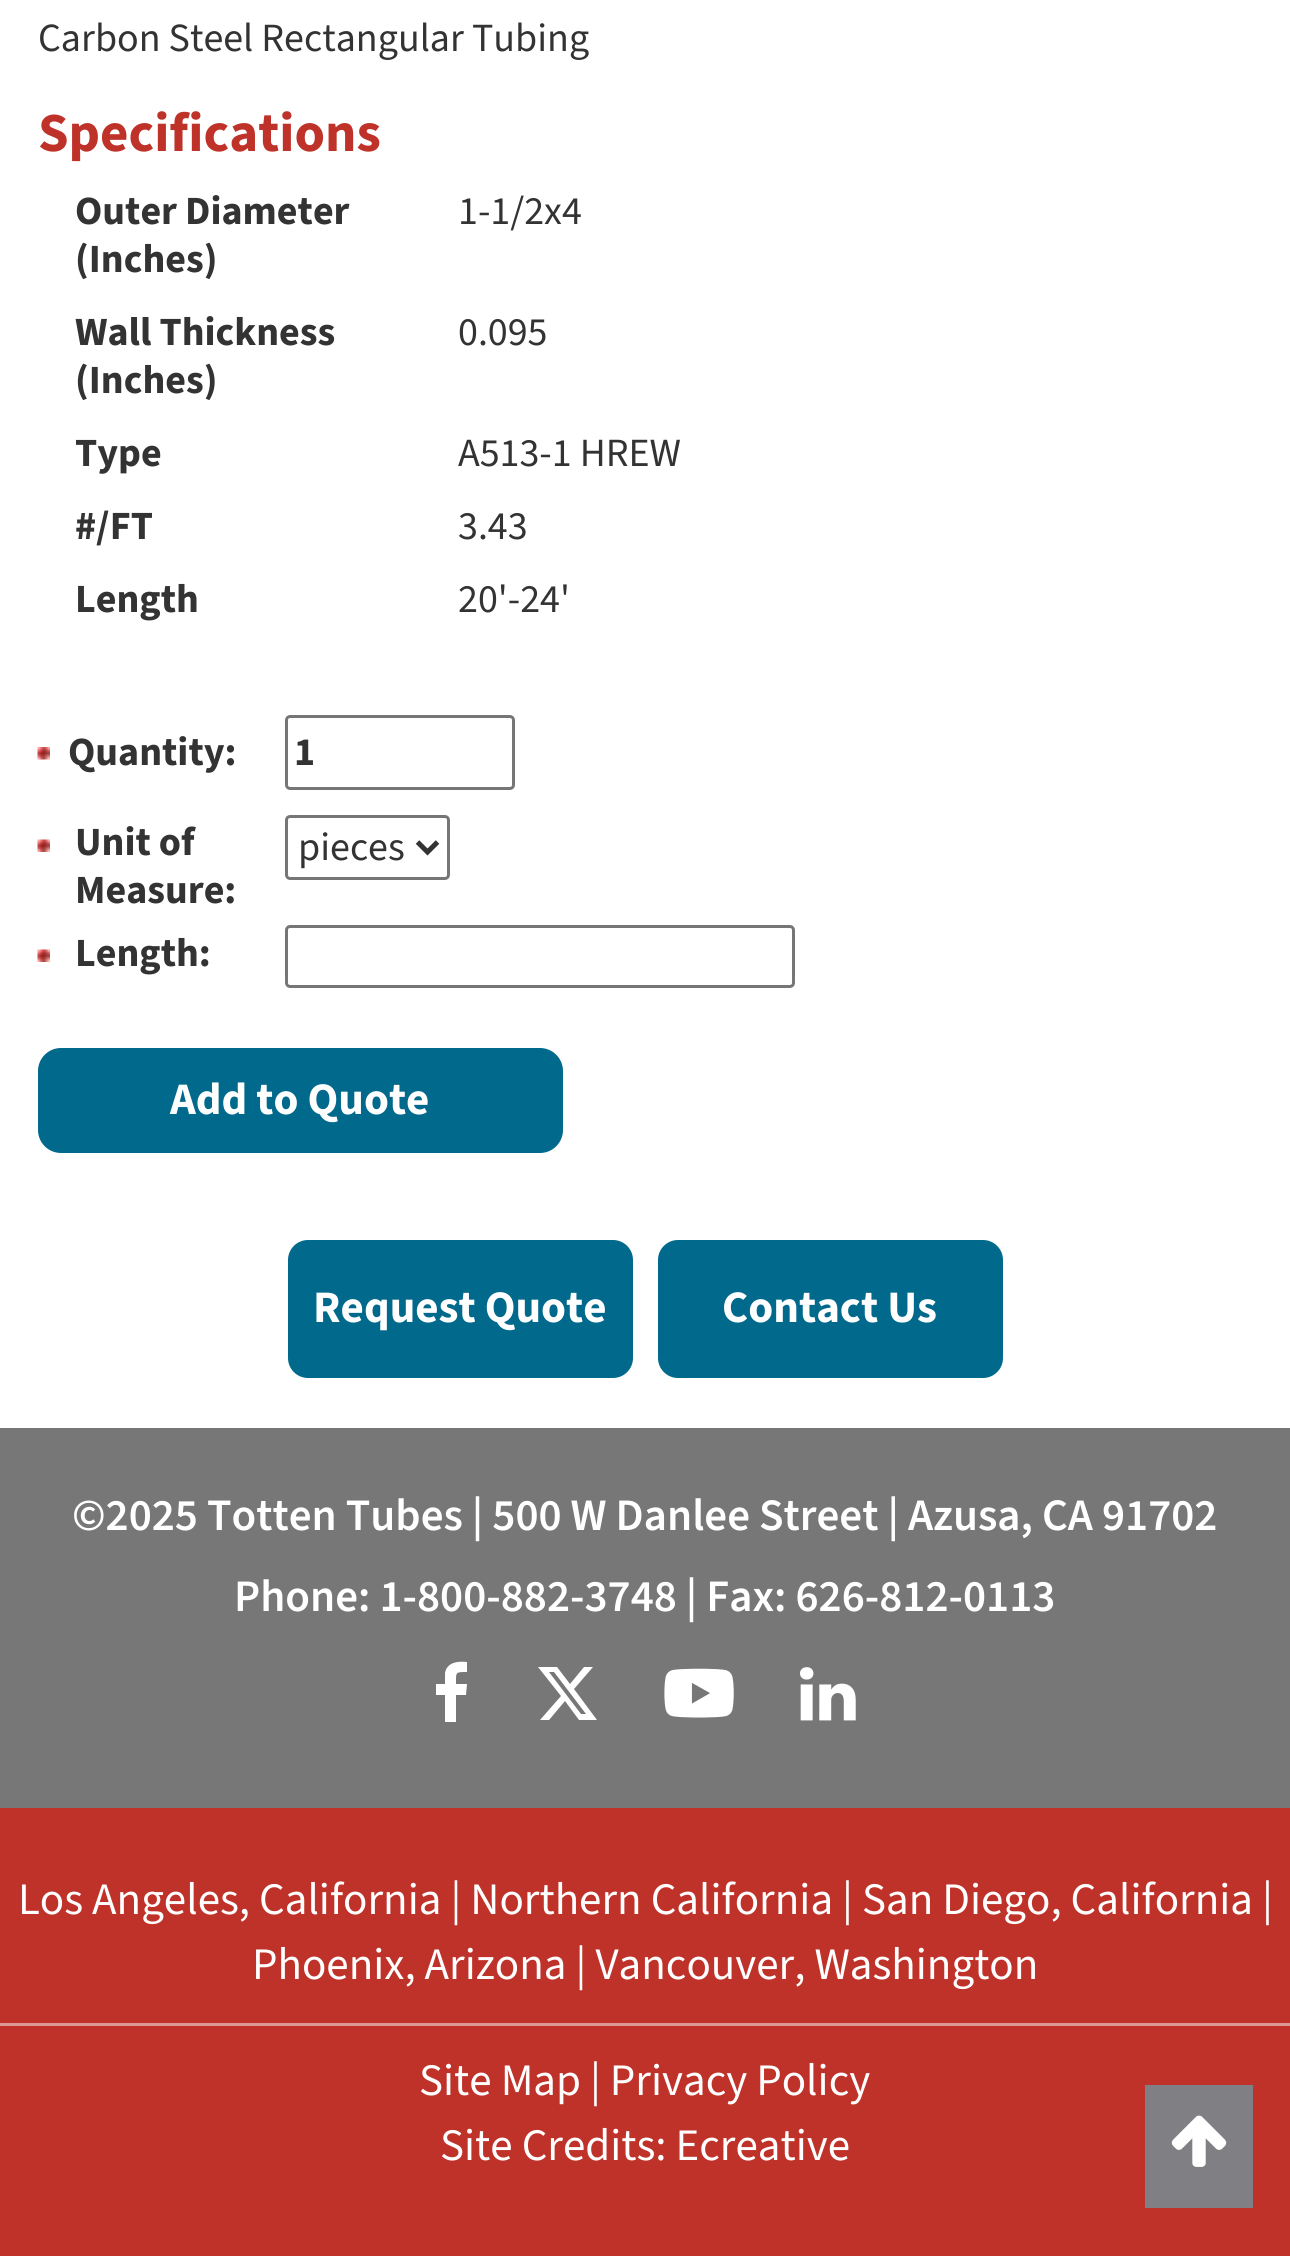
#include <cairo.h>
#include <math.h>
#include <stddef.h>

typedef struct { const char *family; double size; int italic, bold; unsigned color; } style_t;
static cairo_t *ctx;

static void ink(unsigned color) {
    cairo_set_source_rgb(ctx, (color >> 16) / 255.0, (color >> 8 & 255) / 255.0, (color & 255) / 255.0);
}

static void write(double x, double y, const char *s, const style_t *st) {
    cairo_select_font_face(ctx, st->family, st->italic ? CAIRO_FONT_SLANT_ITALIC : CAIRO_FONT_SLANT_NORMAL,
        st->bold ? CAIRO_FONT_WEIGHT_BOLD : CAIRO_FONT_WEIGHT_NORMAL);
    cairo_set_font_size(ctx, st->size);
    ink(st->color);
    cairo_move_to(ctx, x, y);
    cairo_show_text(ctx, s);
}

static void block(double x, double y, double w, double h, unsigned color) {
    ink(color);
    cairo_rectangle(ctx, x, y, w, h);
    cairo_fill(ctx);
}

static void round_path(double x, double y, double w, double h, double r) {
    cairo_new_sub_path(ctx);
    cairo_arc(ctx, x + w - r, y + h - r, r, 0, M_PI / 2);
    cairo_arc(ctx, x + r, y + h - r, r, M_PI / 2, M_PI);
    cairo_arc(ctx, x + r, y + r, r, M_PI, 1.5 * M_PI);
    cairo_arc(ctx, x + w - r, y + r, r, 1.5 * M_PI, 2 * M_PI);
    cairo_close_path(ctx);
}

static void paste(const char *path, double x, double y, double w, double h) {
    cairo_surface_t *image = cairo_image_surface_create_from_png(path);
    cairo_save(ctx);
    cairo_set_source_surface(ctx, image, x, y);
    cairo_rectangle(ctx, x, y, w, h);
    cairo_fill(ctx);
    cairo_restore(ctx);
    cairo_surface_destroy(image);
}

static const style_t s1 = {"Source Sans 3", 40, 0, 0, 0x333333};
static const style_t s2 = {"Source Sans 3", 55, 0, 1, 0xbf3229};
static const style_t s3 = {"Source Sans 3", 40, 0, 1, 0x333333};
static const style_t s4 = {"Source Sans 3", 45, 0, 1, 0xffffff};
static const style_t s5 = {"Source Sans 3 SemiBold", 45, 0, 0, 0xffffff};
static const style_t s6 = {"Source Sans 3", 45, 0, 0, 0xffffff};

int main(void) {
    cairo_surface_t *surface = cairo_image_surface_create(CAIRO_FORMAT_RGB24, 1290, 2256);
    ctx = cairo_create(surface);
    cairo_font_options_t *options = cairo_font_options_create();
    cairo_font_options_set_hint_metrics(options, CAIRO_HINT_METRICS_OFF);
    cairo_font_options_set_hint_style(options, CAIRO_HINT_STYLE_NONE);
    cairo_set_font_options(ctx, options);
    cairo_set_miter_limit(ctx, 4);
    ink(0xffffff);
    cairo_paint(ctx);
    write(38, 51, "Carbon Steel Rectangular Tubing", &s1);
    write(38, 151, "Specifications", &s2);
    write(75, 224, "Outer Diameter", &s3);
    write(75, 272, "(Inches)", &s3);
    write(458, 224, "1-1/2x4", &s1);
    write(75, 345, "Wall Thickness", &s3);
    write(75, 393, "(Inches)", &s3);
    write(458, 345, "0.095", &s1);
    write(75, 466, "Type", &s3);
    write(458, 466, "A513-1 HREW", &s1);
    write(75, 539, "#/FT", &s3);
    write(458, 539, "3.43", &s1);
    write(75, 612, "Length", &s3);
    write(458, 612, "20'-24'", &s1);
    paste("pic1.png", 37, 747, 13, 13);
    write(68, 765, "Quantity:", &s3);
    round_path(286.5, 716.5, 227, 72, 3.5);
    ink(0x767676);
    cairo_set_line_width(ctx, 3);
    cairo_stroke(ctx);
    write(294, 765, "1", &s3);
    paste("pic2.png", 37, 839, 13, 13);
    write(75, 855, "Unit of", &s3);
    write(75, 903, "Measure:", &s3);
    round_path(286.5, 816.5, 162, 62, 3.5);
    ink(0x767676);
    cairo_stroke(ctx);
    cairo_new_path(ctx);
    cairo_move_to(ctx, 417.5, 842);
    cairo_line_to(ctx, 427.5, 852);
    cairo_line_to(ctx, 437.5, 842);
    ink(0x333333);
    cairo_set_line_width(ctx, 5);
    cairo_stroke(ctx);
    write(298, 860, "pieces", &s1);
    paste("pic2.png", 37, 949, 13, 13);
    write(75, 966, "Length:", &s3);
    round_path(286.5, 926.5, 507, 60, 3.5);
    ink(0x767676);
    cairo_set_line_width(ctx, 3);
    cairo_stroke(ctx);
    ink(0x01698c);
    round_path(39.5, 1049.5, 522, 102, 21.5);
    cairo_fill_preserve(ctx);
    cairo_stroke(ctx);
    write(170, 1114, "Add to Quote", &s4);
    ink(0x01698c);
    round_path(290.5, 1242.5, 340, 133, 17.5);
    cairo_fill_preserve(ctx);
    cairo_set_line_width(ctx, 5);
    cairo_stroke(ctx);
    write(313, 1322, "Request Quote", &s4);
    ink(0x01698c);
    round_path(660.5, 1242.5, 340, 133, 17.5);
    cairo_fill_preserve(ctx);
    cairo_stroke(ctx);
    write(722, 1322, "Contact Us", &s4);
    block(0, 1428, 1290, 380, 0x777777);
    write(72, 1530, "©2025 Totten Tubes | 500 W Danlee Street | Azusa, CA 91702", &s5);
    write(234, 1611, "Phone: 1-800-882-3748 | Fax: 626-812-0113", &s5);
    cairo_new_path(ctx);
    cairo_move_to(ctx, 467, 1662);
    cairo_line_to(ctx, 467, 1672);
    cairo_curve_to(ctx, 455, 1672, 456, 1672, 456, 1684);
    cairo_line_to(ctx, 467, 1684);
    cairo_line_to(ctx, 466, 1695);
    cairo_line_to(ctx, 456, 1695);
    cairo_line_to(ctx, 456, 1722);
    cairo_line_to(ctx, 445, 1722);
    cairo_line_to(ctx, 445, 1695);
    cairo_line_to(ctx, 436, 1695);
    cairo_line_to(ctx, 436, 1684);
    cairo_line_to(ctx, 445, 1684);
    cairo_line_to(ctx, 445, 1673);
    cairo_curve_to(ctx, 447, 1662, 458, 1661, 467, 1662);
    cairo_close_path(ctx);
    cairo_fill(ctx);
    cairo_new_path(ctx);
    cairo_move_to(ctx, 584, 1667);
    cairo_line_to(ctx, 593, 1667);
    cairo_line_to(ctx, 584, 1667);
    cairo_line_to(ctx, 593, 1667);
    cairo_line_to(ctx, 574, 1689);
    cairo_line_to(ctx, 597, 1720);
    cairo_line_to(ctx, 579, 1720);
    cairo_line_to(ctx, 565, 1701);
    cairo_line_to(ctx, 549, 1720);
    cairo_line_to(ctx, 540, 1720);
    cairo_line_to(ctx, 561, 1696);
    cairo_line_to(ctx, 538, 1667);
    cairo_line_to(ctx, 557, 1667);
    cairo_line_to(ctx, 570, 1684);
    cairo_close_path(ctx);
    cairo_move_to(ctx, 581, 1714);
    cairo_line_to(ctx, 586, 1714);
    cairo_line_to(ctx, 581, 1714);
    cairo_line_to(ctx, 586, 1714);
    cairo_line_to(ctx, 554, 1672);
    cairo_line_to(ctx, 549, 1672);
    cairo_close_path(ctx);
    cairo_fill(ctx);
    paste("pic3.png", 664, 1668, 70, 50);
    paste("pic4.png", 800, 1667, 56, 54);
    block(0, 1808, 1290, 448, 0xbf3229);
    block(0, 2023, 1290, 3, 0xdf9994);
    write(18, 1914, "Los Angeles, California | Northern California | San Diego, California |", &s6);
    write(252, 1979, "Phoenix, Arizona | Vancouver, Washington", &s6);
    write(419, 2095, "Site Map | Privacy Policy", &s6);
    write(440, 2160, "Site Credits: Ecreative", &s6);
    block(1145, 2085, 108, 123, 0x807f83);
    paste("pic5.png", 1171, 2115, 56, 52);
    cairo_surface_write_to_png(surface, "screenshot.png");
    cairo_font_options_destroy(options);
    cairo_destroy(ctx);
    cairo_surface_destroy(surface);
    return 0;
}
